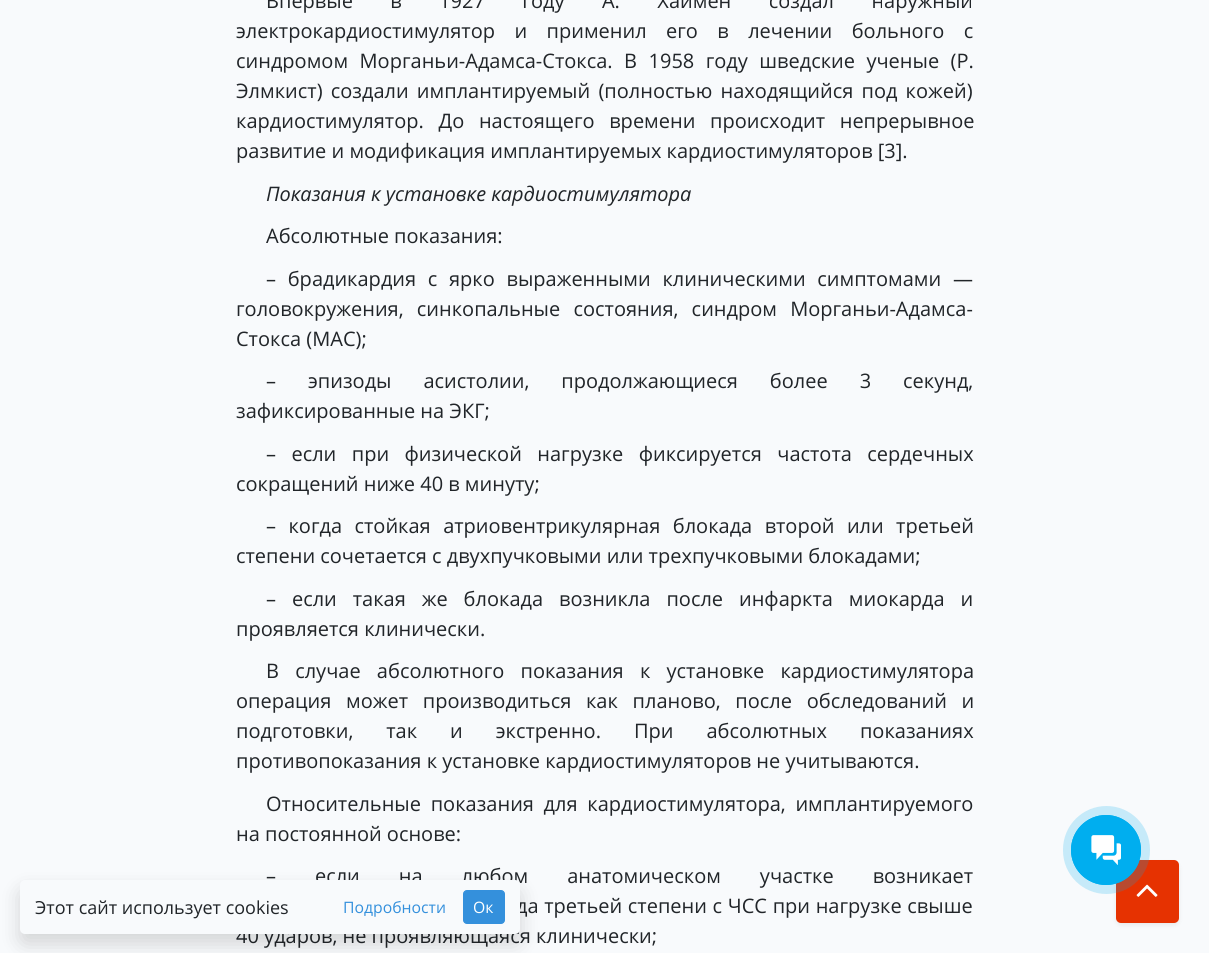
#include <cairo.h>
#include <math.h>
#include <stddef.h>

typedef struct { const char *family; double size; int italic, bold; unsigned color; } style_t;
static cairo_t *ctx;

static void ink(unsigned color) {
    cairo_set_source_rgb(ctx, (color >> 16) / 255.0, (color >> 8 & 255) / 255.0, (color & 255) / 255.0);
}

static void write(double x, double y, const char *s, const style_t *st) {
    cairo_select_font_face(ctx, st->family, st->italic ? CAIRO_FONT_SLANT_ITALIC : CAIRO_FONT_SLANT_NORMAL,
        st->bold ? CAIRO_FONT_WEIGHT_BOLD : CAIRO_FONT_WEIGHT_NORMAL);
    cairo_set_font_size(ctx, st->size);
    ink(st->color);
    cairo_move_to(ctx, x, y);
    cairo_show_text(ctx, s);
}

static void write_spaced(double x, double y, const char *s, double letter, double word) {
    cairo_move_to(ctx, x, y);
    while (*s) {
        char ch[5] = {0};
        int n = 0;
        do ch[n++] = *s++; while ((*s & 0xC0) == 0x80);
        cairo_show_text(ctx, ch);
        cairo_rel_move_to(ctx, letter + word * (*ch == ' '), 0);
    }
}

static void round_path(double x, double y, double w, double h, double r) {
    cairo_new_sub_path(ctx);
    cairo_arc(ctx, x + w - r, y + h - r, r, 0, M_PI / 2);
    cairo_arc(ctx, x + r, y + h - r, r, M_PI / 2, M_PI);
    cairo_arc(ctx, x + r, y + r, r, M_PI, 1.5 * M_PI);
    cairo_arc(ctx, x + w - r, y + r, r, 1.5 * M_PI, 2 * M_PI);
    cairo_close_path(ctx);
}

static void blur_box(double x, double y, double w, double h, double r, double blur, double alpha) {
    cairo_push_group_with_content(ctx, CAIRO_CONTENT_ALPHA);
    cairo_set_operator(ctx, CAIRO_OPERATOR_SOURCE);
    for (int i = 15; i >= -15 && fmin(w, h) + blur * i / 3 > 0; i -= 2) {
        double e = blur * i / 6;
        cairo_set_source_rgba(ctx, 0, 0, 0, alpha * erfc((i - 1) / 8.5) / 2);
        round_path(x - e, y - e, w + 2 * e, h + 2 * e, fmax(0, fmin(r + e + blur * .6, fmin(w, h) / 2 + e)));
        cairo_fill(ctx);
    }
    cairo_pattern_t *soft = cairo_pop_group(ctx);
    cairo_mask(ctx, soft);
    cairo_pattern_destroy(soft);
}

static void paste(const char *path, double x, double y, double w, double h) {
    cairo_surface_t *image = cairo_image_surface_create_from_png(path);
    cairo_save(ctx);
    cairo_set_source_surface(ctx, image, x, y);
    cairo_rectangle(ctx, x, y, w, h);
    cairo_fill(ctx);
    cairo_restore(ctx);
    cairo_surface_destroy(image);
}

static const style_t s1 = {"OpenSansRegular", 20, 0, 0, 0x212529};
static const style_t s2 = {"Open Sans", 20, 1, 0, 0x212529};
static const style_t s3 = {"OpenSansRegular", 18, 0, 0, 0x212529};
static const style_t s4 = {"OpenSansRegular", 15.75, 0, 0, 0x3490dc};
static const style_t s5 = {"OpenSansRegular", 15.75, 0, 0, 0xffffff};

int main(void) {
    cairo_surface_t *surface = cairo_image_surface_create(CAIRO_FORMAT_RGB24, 1209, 953);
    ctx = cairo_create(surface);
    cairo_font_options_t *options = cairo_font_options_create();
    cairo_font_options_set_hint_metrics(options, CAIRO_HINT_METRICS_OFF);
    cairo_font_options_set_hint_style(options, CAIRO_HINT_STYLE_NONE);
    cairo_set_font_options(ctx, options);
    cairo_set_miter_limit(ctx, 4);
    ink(0xf8fafc);
    cairo_paint(ctx);
    cairo_select_font_face(ctx, "OpenSansRegular", CAIRO_FONT_SLANT_NORMAL, CAIRO_FONT_WEIGHT_NORMAL);
    cairo_set_font_size(ctx, 20);
    ink(0x212529);
    write_spaced(266, 8, "Впервые в 1927 году А. Хаймен создал наружный", 0, 32.25);
    write_spaced(236, 38, "электрокардиостимулятор и применил его в лечении больного с", 0, 14.25);
    write_spaced(236, 68, "синдромом Морганьи-Адамса-Стокса. В 1958 году шведские ученые (Р.", 0, 6.25);
    write_spaced(236, 98, "Элмкист) создали имплантируемый (полностью находящийся под кожей)", 0, 3);
    write_spaced(236, 128, "кардиостимулятор. До настоящего времени происходит непрерывное", 0, 9.5);
    write(236, 158, "развитие и модификация имплантируемых кардиостимуляторов [3].", &s1);
    write(266, 201, "Показания к установке кардиостимулятора", &s2);
    write(266, 243, "Абсолютные показания:", &s1);
    write_spaced(266, 286, "– брадикардия с ярко выраженными клиническими симптомами —", 0, 6.5);
    write_spaced(236, 316, "головокружения, синкопальные состояния, синдром Морганьи-Адамса-", 0, 8);
    write(236, 346, "Стокса (МАС);", &s1);
    write_spaced(266, 388, "– эпизоды асистолии, продолжающиеся более 3 секунд,", 0, 26.75);
    write(236, 418, "зафиксированные на ЭКГ;", &s1);
    write_spaced(266, 461, "– если при физической нагрузке фиксируется частота сердечных", 0, 10.25);
    write(236, 491, "сокращений ниже 40 в минуту;", &s1);
    write_spaced(266, 533, "– когда стойкая атриовентрикулярная блокада второй или третьей", 0, 7.25);
    write(236, 563, "степени сочетается с двухпучковыми или трехпучковыми блокадами;", &s1);
    write_spaced(266, 606, "– если такая же блокада возникла после инфаркта миокарда и", 0, 10.75);
    write(236, 636, "проявляется клинически.", &s1);
    write_spaced(266, 678, "В случае абсолютного показания к установке кардиостимулятора", 0, 11);
    write_spaced(236, 708, "операция может производиться как планово, после обследований и", 0, 9.5);
    write_spaced(236, 738, "подготовки, так и экстренно. При абсолютных показаниях", 0, 27.75);
    write(236, 768, "противопоказания к установке кардиостимуляторов не учитываются.", &s1);
    write_spaced(266, 811, "Относительные показания для кардиостимулятора, имплантируемого", 0, 4.5);
    write(236, 841, "на постоянной основе:", &s1);
    write_spaced(266, 883, "– если на любом анатомическом участке возникает", 0, 33.75);
    write_spaced(516, 913, "да третьей степени с ЧСС при нагрузке свыше", 0, 0.5);
    write(236, 943, "40 ударов, не проявляющаяся клинически;", &s1);
    ink(0x000000);
    blur_box(1116, 863, 63, 62, 5, 2.5, 0.07);
    ink(0xe63201);
    round_path(1116, 860, 63, 63, 5);
    cairo_fill(ctx);
    paste("pic2.png", 1136, 884, 22, 13);
    cairo_set_source_rgba(ctx, 0, 0.682, 0.937, 0.2);
    round_path(1063, 806, 87, 88, 43.5);
    cairo_fill(ctx);
    cairo_arc(ctx, 1106, 850, 34.5, 0, 2 * M_PI);
    ink(0x00aeef);
    cairo_set_line_width(ctx, 1);
    cairo_stroke(ctx);
    cairo_arc(ctx, 1106, 850, 35, 0, 2 * M_PI);
    cairo_fill(ctx);
    paste("pic1.png", 1091, 835, 30, 30);
    ink(0x000000);
    blur_box(20, 890, 500, 54, 5, 10, 0.15);
    ink(0xf8fafc);
    round_path(20, 880, 500, 54, 5);
    cairo_fill(ctx);
    write(35, 914, "Этот сайт использует cookies", &s3);
    write(343, 913, "Подробности", &s4);
    round_path(463.5, 890.5, 41, 33, 3.5);
    cairo_fill_preserve(ctx);
    cairo_stroke(ctx);
    write(473, 913, "Ок", &s5);
    cairo_surface_write_to_png(surface, "screenshot.png");
    cairo_font_options_destroy(options);
    cairo_destroy(ctx);
    cairo_surface_destroy(surface);
    return 0;
}
